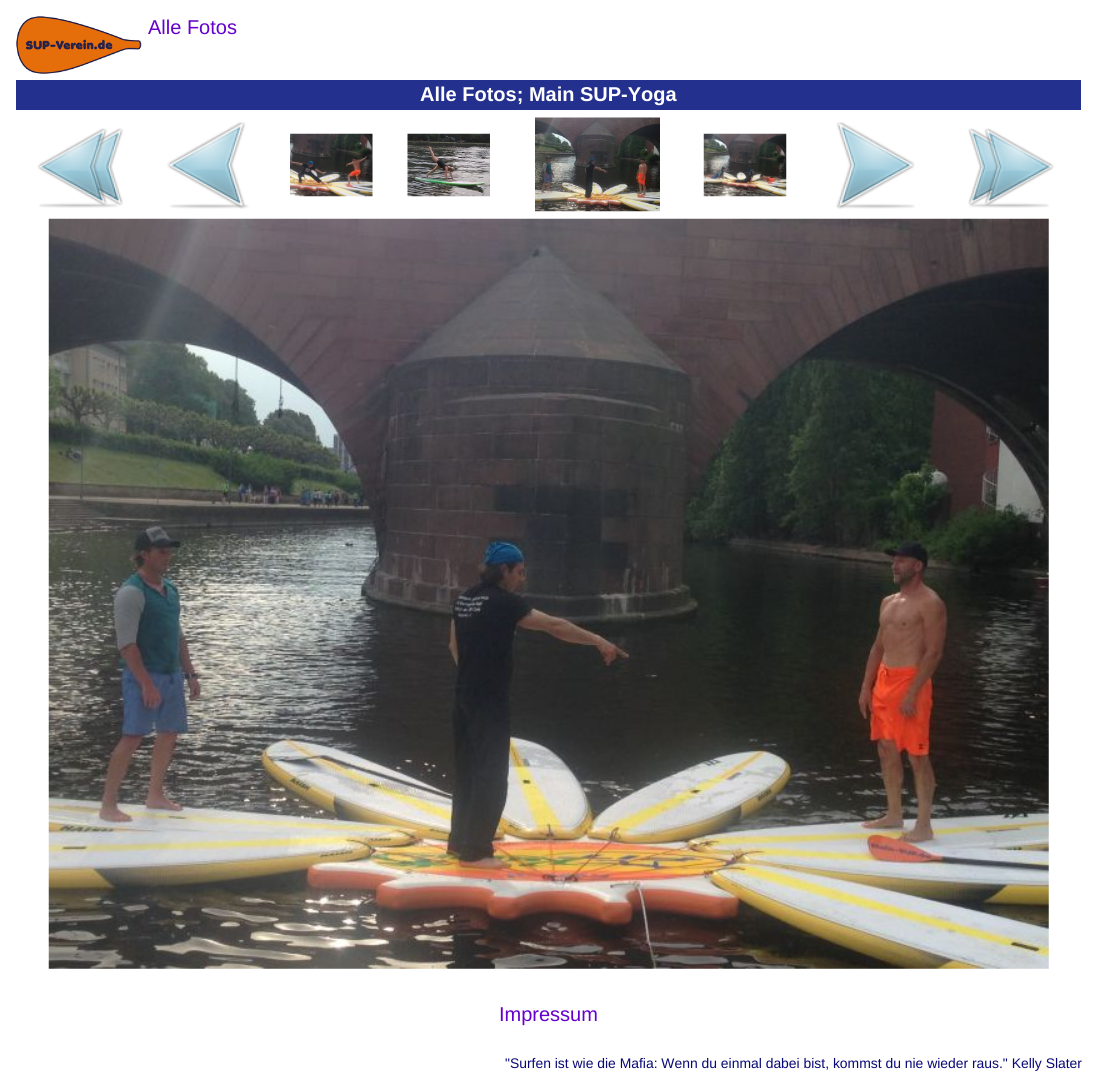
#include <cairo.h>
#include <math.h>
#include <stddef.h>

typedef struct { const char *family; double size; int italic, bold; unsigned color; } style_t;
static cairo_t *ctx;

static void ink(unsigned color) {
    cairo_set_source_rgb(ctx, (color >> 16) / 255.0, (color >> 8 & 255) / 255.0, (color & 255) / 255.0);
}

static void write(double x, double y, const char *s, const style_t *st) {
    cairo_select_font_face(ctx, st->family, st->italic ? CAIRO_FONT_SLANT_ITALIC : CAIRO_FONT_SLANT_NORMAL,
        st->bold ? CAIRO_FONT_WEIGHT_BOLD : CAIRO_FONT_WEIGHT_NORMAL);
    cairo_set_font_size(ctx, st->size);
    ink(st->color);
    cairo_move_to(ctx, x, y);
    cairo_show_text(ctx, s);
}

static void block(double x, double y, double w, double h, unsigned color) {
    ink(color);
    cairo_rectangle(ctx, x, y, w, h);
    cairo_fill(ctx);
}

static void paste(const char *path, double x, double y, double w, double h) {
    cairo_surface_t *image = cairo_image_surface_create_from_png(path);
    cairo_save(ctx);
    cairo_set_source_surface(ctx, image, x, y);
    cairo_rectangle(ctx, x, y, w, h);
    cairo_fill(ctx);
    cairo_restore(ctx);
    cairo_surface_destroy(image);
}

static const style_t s1 = {"Liberation Sans", 20, 0, 0, 0x6600cc};
static const style_t s2 = {"Liberation Sans", 20, 0, 1, 0xffffff};
static const style_t s3 = {"Liberation Sans", 13.9, 0, 0, 0x080875};

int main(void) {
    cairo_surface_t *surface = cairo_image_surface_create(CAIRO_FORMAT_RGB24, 1097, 1086);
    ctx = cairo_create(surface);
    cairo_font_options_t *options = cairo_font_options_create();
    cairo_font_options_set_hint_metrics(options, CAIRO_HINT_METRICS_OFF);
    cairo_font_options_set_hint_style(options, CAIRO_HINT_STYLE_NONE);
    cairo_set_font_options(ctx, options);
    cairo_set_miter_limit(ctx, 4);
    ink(0xffffff);
    cairo_paint(ctx);
    paste("pic1.png", 16, 16, 126, 58);
    write(148, 34, "Alle Fotos", &s1);
    block(16, 80, 1065, 30, 0x23308e);
    write(420, 101, "Alle Fotos; Main SUP-Yoga", &s2);
    paste("pic2.png", 37, 128, 86, 80);
    paste("pic3.png", 167, 122, 82, 87);
    paste("pic4.png", 290, 133, 83, 64);
    paste("pic5.png", 407, 133, 83, 64);
    paste("pic6.png", 535, 117, 125, 95);
    paste("pic7.png", 703, 133, 84, 64);
    paste("pic8.png", 836, 122, 79, 87);
    paste("pic9.png", 968, 128, 86, 80);
    paste("pic10.png", 48, 218, 1001, 751);
    write(499, 1021, "Impressum", &s1);
    write(505, 1068, "\"Surfen ist wie die Mafia: Wenn du einmal dabei bist, kommst du nie wieder raus.\" Kelly Slater", &s3);
    cairo_surface_write_to_png(surface, "screenshot.png");
    cairo_font_options_destroy(options);
    cairo_destroy(ctx);
    cairo_surface_destroy(surface);
    return 0;
}
